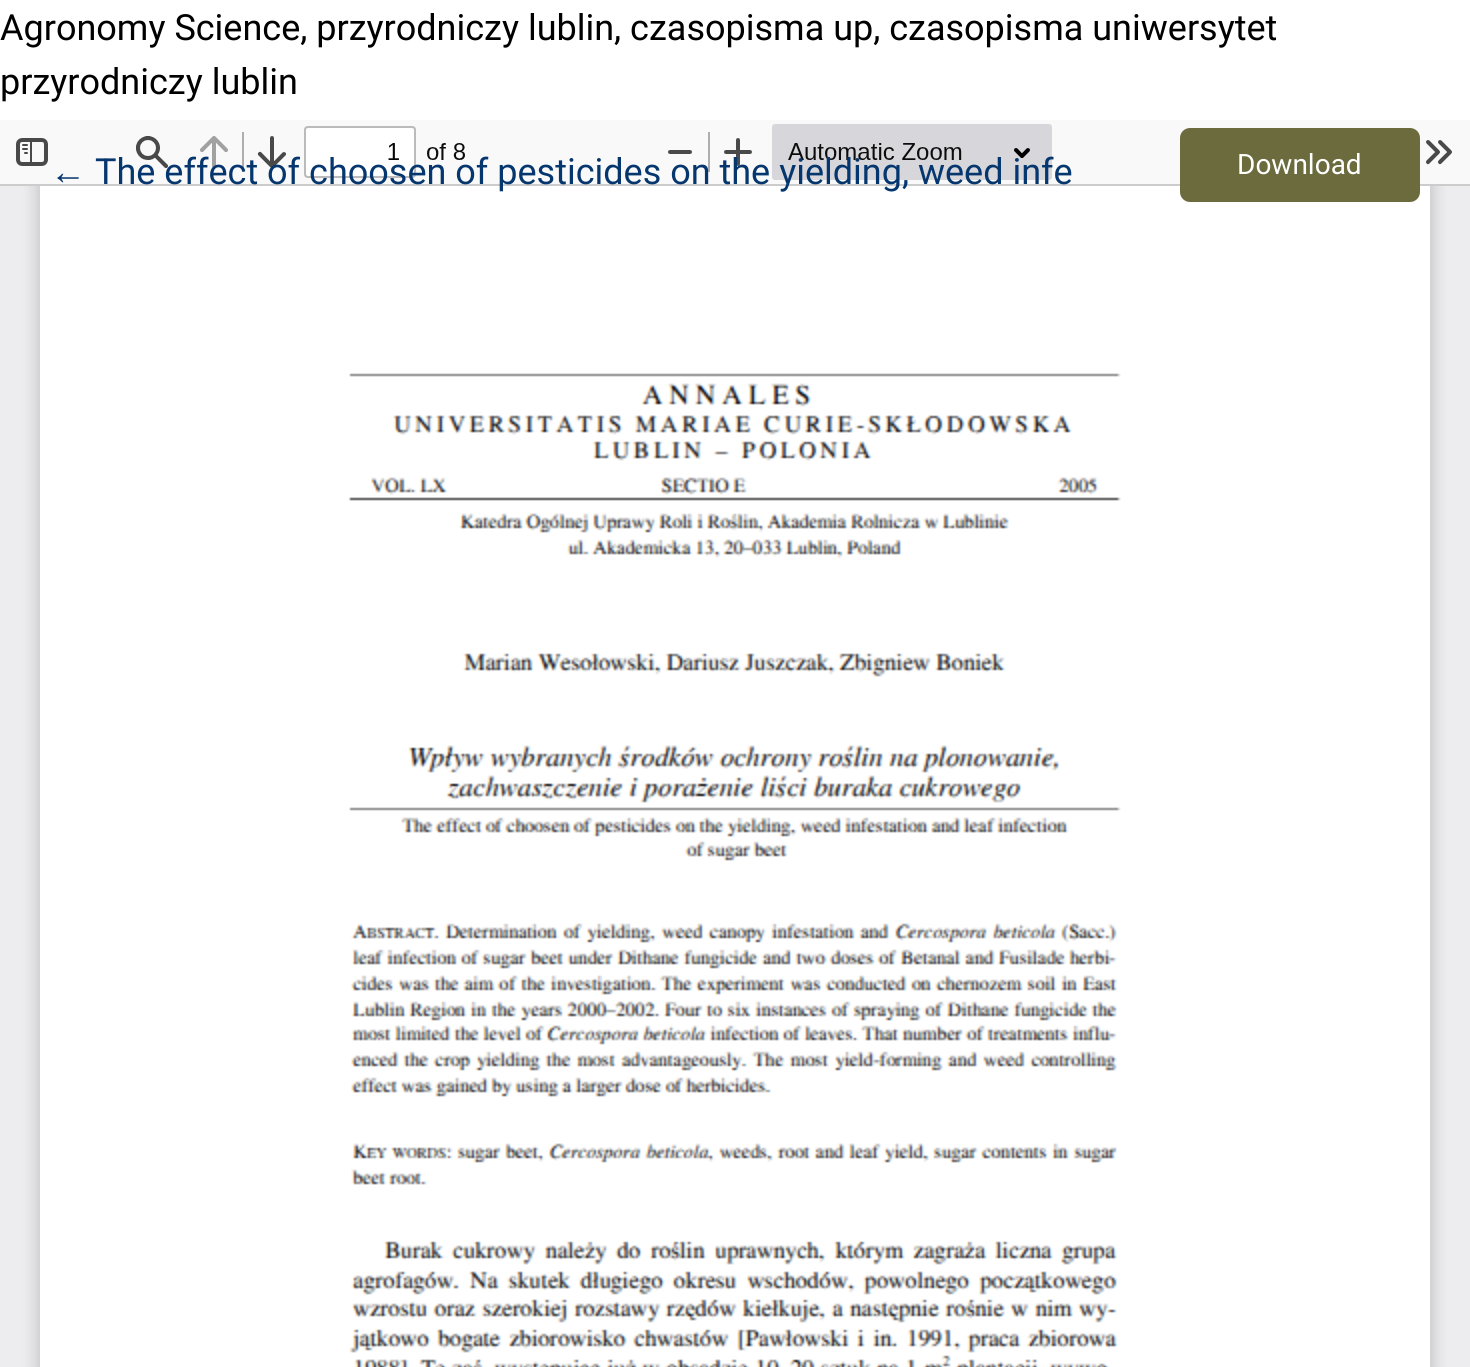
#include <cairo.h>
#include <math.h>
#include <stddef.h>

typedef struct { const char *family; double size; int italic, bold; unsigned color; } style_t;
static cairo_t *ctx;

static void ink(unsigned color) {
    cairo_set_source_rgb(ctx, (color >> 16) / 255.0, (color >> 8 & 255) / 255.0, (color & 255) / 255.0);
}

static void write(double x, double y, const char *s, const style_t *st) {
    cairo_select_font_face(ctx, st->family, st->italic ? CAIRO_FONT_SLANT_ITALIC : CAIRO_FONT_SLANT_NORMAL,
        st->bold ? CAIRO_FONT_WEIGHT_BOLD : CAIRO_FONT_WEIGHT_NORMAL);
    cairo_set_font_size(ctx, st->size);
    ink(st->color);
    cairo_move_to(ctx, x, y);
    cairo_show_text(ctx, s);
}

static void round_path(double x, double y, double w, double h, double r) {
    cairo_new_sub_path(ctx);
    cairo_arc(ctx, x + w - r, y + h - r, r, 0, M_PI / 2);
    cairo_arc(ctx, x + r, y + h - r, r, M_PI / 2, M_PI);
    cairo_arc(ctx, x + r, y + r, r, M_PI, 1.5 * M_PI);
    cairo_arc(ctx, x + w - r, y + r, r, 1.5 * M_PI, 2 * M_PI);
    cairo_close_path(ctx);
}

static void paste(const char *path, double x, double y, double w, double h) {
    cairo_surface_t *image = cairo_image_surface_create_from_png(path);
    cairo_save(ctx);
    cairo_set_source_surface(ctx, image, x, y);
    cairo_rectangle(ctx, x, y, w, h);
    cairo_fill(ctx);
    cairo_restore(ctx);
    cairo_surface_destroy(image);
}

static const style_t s1 = {"Roboto", 36, 0, 0, 0x000000};
static const style_t s2 = {"Liberation Sans", 36, 0, 0, 0x05366e};
static const style_t s3 = {"Roboto", 36, 0, 0, 0x05366e};
static const style_t s4 = {"Roboto", 28, 0, 0, 0xffffff};

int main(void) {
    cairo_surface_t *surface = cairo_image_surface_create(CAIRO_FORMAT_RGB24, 1470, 1367);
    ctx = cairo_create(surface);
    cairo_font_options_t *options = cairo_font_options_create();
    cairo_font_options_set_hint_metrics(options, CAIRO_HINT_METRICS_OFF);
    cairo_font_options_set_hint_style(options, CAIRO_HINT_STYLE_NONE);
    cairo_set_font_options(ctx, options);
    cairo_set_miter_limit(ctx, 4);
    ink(0xffffff);
    cairo_paint(ctx);
    write(0, 40, "Agronomy Science, przyrodniczy lublin, czasopisma up, czasopisma uniwersytet", &s1);
    write(0, 94, "przyrodniczy lublin", &s1);
    paste("pic1.png", 0, 120, 1470, 1247);
    write(50, 184, "←", &s2);
    write(95, 184, "The effect of choosen of pesticides on the yielding, weed infe", &s3);
    ink(0x6b6b3e);
    round_path(1181, 129, 238, 72, 9);
    cairo_fill_preserve(ctx);
    cairo_stroke(ctx);
    write(1237, 174, "Download", &s4);
    cairo_surface_write_to_png(surface, "screenshot.png");
    cairo_font_options_destroy(options);
    cairo_destroy(ctx);
    cairo_surface_destroy(surface);
    return 0;
}
